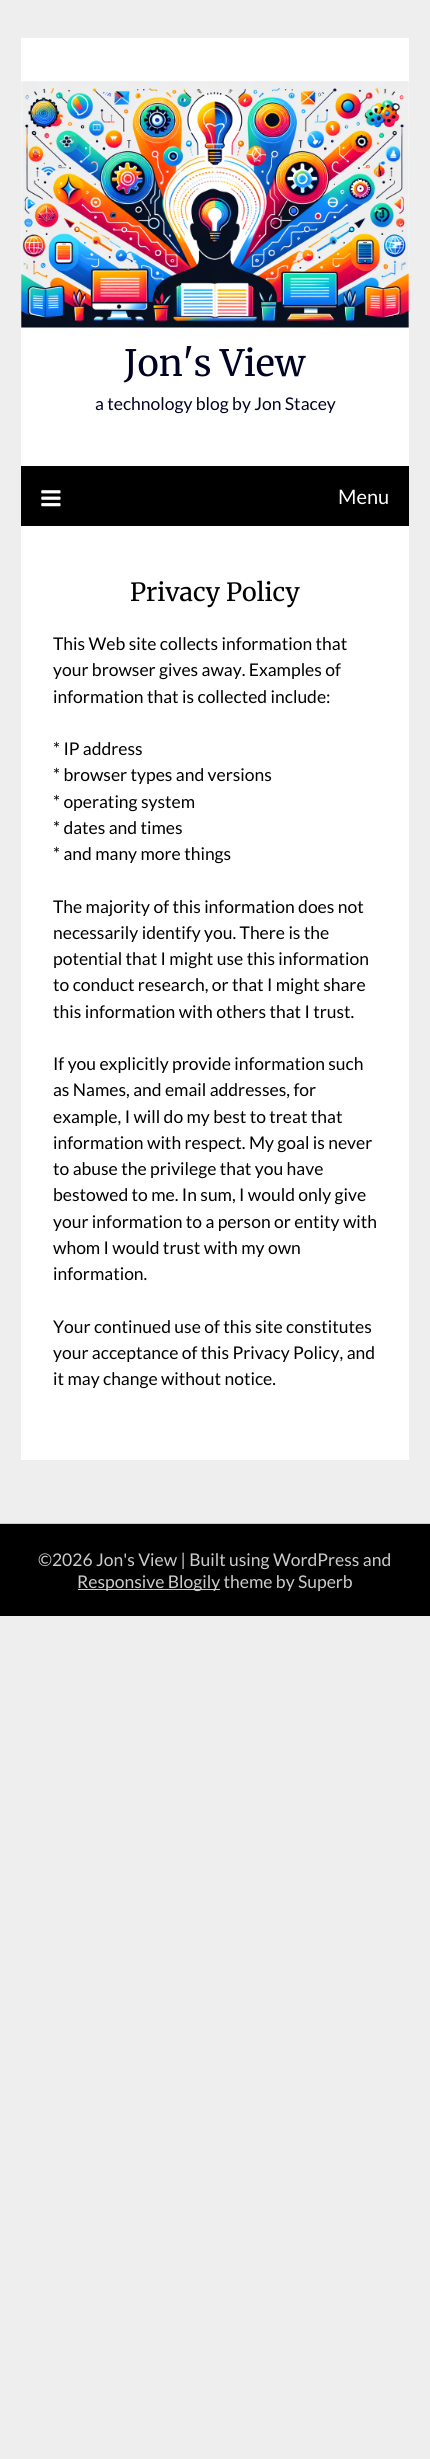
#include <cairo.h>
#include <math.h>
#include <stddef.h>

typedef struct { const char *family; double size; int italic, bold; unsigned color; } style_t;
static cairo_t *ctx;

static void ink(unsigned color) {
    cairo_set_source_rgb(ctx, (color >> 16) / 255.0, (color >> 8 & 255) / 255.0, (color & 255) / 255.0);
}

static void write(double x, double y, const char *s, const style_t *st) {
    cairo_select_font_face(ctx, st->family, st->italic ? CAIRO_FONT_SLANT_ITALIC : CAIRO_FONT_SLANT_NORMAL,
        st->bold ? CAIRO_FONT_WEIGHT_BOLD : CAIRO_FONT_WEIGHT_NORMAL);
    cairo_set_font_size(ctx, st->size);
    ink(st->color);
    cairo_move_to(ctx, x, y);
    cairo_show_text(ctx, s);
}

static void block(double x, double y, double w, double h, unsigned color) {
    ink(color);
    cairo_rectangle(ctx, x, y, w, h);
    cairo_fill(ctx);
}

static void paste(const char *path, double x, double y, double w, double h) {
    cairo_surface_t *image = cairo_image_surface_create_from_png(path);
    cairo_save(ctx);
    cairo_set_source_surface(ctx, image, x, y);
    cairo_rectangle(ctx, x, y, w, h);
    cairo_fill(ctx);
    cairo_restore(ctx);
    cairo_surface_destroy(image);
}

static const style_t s1 = {"Merriweather", 36.25, 0, 0, 0x000222};
static const style_t s2 = {"Lato", 17.5, 0, 0, 0x000222};
static const style_t s3 = {"Lato", 20, 0, 0, 0xffffff};
static const style_t s4 = {"Merriweather", 25, 0, 0, 0x000000};
static const style_t s5 = {"Lato", 17.5, 0, 0, 0x000000};
static const style_t s6 = {"Lato", 17.5, 0, 0, 0xcccccc};

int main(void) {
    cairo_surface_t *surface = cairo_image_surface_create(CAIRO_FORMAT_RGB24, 430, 2459);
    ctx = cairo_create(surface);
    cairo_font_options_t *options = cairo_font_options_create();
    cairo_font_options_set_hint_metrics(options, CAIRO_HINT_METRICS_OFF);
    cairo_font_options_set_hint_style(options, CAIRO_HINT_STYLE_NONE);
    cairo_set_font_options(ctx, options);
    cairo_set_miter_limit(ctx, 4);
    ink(0xeeeeee);
    cairo_paint(ctx);
    block(21, 38, 388, 428, 0xffffff);
    paste("pic1.png", 21, 81, 388, 247);
    write(124, 376, "Jon's View", &s1);
    write(95, 410, "a technology blog by Jon Stacey", &s2);
    block(21, 466, 388, 60, 0x000000);
    paste("pic2.png", 41, 490, 20, 17);
    write(338, 504, "Menu", &s3);
    block(21, 526, 388, 934, 0xffffff);
    write(130, 601, "Privacy Policy", &s4);
    write(53, 650, "This Web site collects information that", &s5);
    write(53, 676, "your browser gives away. Examples of", &s5);
    write(53, 703, "information that is collected include:", &s5);
    write(53, 755, "* IP address", &s5);
    write(53, 781, "* browser types and versions", &s5);
    write(53, 808, "* operating system", &s5);
    write(53, 834, "* dates and times", &s5);
    write(53, 860, "* and many more things", &s5);
    write(53, 913, "The majority of this information does not", &s5);
    write(53, 939, "necessarily identify you. There is the", &s5);
    write(53, 965, "potential that I might use this information", &s5);
    write(53, 991, "to conduct research, or that I might share", &s5);
    write(53, 1018, "this information with others that I trust.", &s5);
    write(53, 1070, "If you explicitly provide information such", &s5);
    write(53, 1096, "as Names, and email addresses, for", &s5);
    write(53, 1123, "example, I will do my best to treat that", &s5);
    write(53, 1149, "information with respect. My goal is never", &s5);
    write(53, 1175, "to abuse the privilege that you have", &s5);
    write(53, 1201, "bestowed to me. In sum, I would only give", &s5);
    write(53, 1228, "your information to a person or entity with", &s5);
    write(53, 1254, "whom I would trust with my own", &s5);
    write(53, 1280, "information.", &s5);
    write(53, 1333, "Your continued use of this site constitutes", &s5);
    write(53, 1359, "your acceptance of this Privacy Policy, and", &s5);
    write(53, 1385, "it may change without notice.", &s5);
    block(0, 1524, 430, 92, 0x000000);
    block(0, 1523, 430, 1, 0xcccccc);
    write(38, 1566, "©2026 Jon's View | Built using WordPress and", &s6);
    block(78, 1589, 142, 1, 0xcccccc);
    write(77, 1588, "Responsive Blogily theme by Superb", &s6);
    cairo_surface_write_to_png(surface, "screenshot.png");
    cairo_font_options_destroy(options);
    cairo_destroy(ctx);
    cairo_surface_destroy(surface);
    return 0;
}
